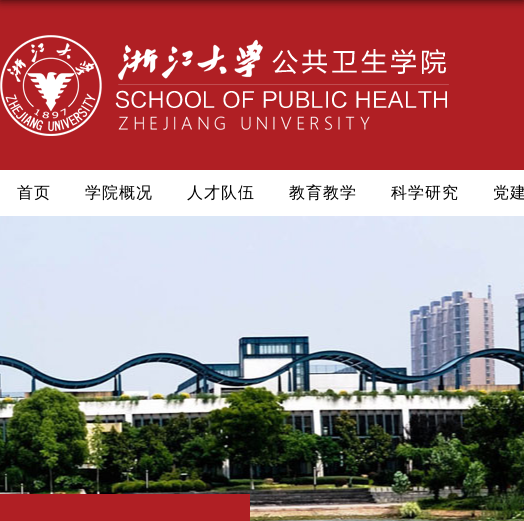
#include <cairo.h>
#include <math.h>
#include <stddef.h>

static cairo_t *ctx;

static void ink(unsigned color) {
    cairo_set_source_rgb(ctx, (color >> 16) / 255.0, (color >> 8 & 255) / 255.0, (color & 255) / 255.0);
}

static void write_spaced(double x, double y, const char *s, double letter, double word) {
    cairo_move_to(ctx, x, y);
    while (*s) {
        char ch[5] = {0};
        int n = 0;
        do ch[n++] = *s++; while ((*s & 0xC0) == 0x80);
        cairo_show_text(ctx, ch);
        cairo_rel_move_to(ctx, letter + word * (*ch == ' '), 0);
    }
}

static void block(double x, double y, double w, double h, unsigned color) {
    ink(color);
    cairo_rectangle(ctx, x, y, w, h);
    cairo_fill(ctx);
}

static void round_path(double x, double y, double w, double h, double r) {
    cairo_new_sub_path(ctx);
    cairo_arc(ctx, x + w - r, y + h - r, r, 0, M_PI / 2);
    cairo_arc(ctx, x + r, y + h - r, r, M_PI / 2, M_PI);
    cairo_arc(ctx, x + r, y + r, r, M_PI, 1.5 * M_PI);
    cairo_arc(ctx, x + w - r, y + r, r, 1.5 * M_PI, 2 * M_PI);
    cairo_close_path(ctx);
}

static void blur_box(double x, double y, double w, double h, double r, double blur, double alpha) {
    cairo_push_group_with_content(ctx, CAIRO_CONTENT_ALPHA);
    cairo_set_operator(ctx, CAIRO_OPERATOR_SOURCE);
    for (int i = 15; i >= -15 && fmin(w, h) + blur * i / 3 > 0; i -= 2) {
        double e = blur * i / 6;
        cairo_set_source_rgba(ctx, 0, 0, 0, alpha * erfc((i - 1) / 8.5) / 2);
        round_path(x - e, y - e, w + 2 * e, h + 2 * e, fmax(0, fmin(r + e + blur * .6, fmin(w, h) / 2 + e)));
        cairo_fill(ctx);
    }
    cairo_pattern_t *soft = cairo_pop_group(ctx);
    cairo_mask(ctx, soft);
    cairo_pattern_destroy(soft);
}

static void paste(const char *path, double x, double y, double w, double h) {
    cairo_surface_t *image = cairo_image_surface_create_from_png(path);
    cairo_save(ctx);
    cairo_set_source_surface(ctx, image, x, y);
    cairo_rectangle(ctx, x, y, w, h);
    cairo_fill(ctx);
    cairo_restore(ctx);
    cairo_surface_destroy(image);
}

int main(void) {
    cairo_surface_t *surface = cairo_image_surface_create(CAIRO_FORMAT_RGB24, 524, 521);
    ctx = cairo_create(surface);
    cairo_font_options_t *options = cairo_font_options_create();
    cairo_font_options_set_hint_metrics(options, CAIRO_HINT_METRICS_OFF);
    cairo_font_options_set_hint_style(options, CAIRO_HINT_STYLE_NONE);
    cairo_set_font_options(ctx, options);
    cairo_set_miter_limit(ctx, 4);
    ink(0xffffff);
    cairo_paint(ctx);
    block(0, 0, 524, 170, 0xb01f24);
    paste("pic1.png", 0, 35, 449, 101);
    ink(0x000000);
    blur_box(0, -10, 524, 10, 0, 5, 0.8);
    cairo_select_font_face(ctx, "WenQuanYi Zen Hei Medium", CAIRO_FONT_SLANT_NORMAL, CAIRO_FONT_WEIGHT_NORMAL);
    cairo_set_font_size(ctx, 16);
    ink(0x000000);
    write_spaced(17, 198, "首页", 1, 0);
    write_spaced(85, 198, "学院概况", 1, 0);
    write_spaced(187, 198, "人才队伍", 1, 0);
    write_spaced(289, 198, "教育教学", 1, 0);
    write_spaced(391, 198, "科学研究", 1, 0);
    write_spaced(493, 198, "党建", 1, 0);
    paste("pic2.png", 0, 216, 524, 305);
    block(0, 494, 250, 27, 0xb01f24);
    cairo_surface_write_to_png(surface, "screenshot.png");
    cairo_font_options_destroy(options);
    cairo_destroy(ctx);
    cairo_surface_destroy(surface);
    return 0;
}
